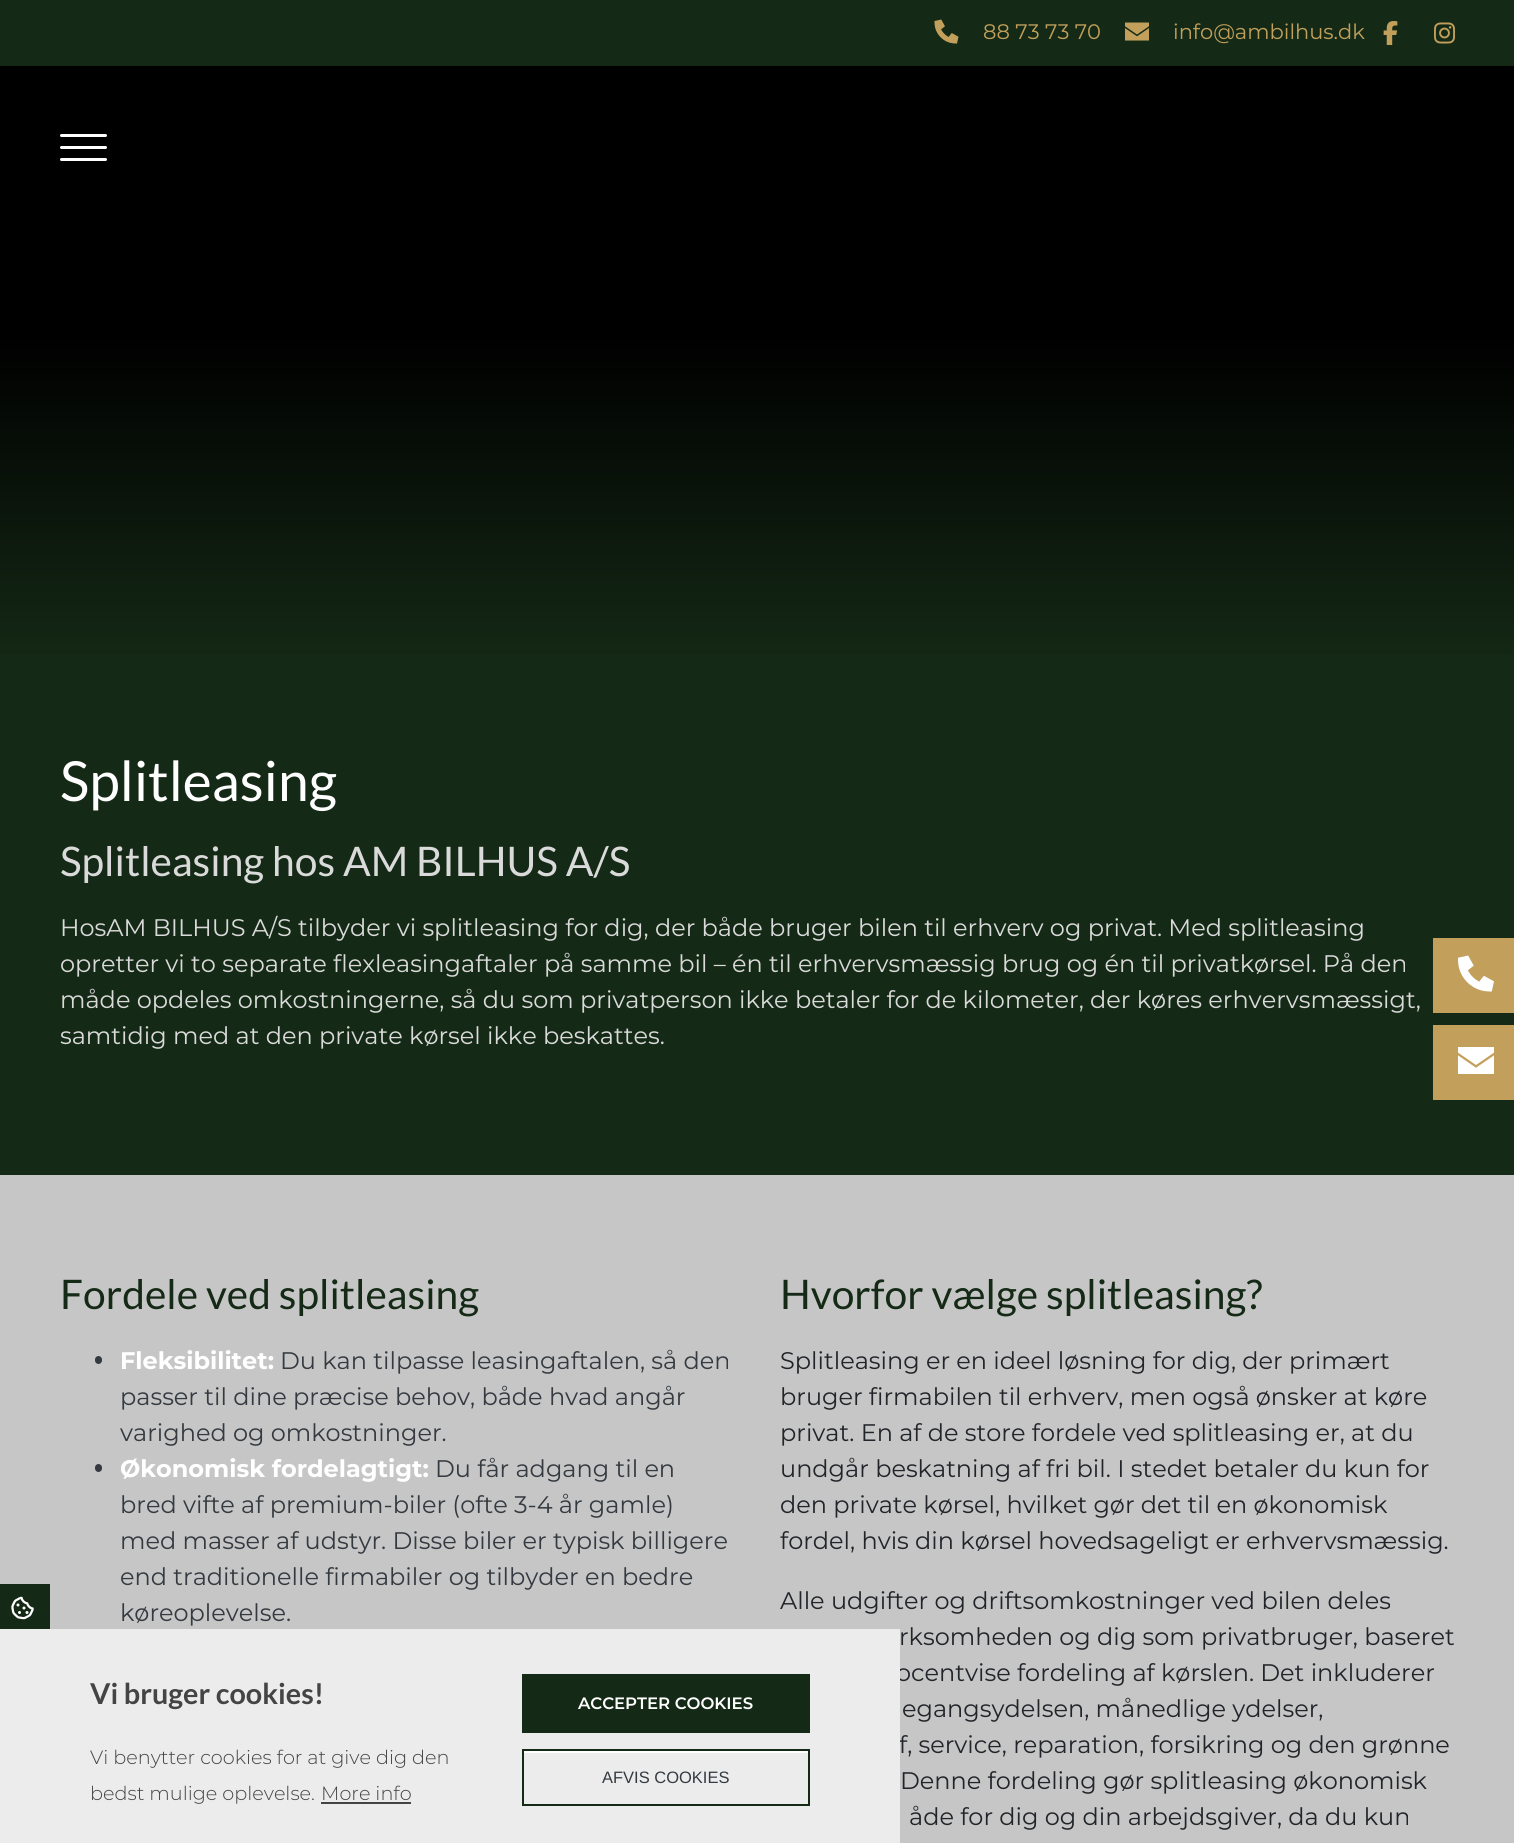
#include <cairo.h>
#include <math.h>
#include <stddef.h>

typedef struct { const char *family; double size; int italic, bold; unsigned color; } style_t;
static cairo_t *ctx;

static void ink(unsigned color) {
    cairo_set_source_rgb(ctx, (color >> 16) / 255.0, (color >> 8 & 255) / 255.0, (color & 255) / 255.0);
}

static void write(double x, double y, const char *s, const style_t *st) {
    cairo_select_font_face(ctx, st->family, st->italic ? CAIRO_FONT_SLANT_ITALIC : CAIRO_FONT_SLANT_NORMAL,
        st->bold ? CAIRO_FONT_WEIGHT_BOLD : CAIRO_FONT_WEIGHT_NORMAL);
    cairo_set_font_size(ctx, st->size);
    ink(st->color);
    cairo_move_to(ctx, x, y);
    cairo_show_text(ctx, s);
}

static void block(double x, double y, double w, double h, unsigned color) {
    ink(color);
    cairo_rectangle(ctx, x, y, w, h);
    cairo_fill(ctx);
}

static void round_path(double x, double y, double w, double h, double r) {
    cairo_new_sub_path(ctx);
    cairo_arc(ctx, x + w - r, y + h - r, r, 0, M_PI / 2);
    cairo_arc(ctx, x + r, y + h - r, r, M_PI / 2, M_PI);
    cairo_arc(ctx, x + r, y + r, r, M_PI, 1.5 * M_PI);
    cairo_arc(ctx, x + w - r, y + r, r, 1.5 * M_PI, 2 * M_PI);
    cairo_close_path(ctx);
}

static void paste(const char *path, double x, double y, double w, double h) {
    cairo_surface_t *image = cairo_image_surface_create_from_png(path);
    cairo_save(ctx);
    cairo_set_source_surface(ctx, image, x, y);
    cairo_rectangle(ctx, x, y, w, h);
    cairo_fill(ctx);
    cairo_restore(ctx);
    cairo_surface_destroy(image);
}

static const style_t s1 = {"Montserrat", 21, 0, 0, 0xc2a05b};
static const style_t s2 = {"Lato", 55.25, 0, 0, 0xffffff};
static const style_t s3 = {"Lato", 40.75, 0, 0, 0xdadada};
static const style_t s4 = {"Montserrat", 24, 0, 0, 0xdadada};
static const style_t s5 = {"Lato", 40.75, 0, 0, 0x152a16};
static const style_t s6 = {"Montserrat", 24, 0, 1, 0xffffff};
static const style_t s7 = {"Montserrat", 24, 0, 0, 0x343a40};
static const style_t s8 = {"Montserrat", 24, 0, 0, 0x212429};
static const style_t s9 = {"Lato", 28.75, 0, 1, 0x444444};
static const style_t s10 = {"Montserrat Light", 19.25, 0, 0, 0x444444};
static const style_t s11 = {"Montserrat SemiBold", 16.5, 0, 0, 0xffffff};
static const style_t s12 = {"Liberation Sans", 16.5, 0, 0, 0x343a40};

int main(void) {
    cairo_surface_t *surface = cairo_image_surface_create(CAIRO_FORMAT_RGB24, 1514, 1843);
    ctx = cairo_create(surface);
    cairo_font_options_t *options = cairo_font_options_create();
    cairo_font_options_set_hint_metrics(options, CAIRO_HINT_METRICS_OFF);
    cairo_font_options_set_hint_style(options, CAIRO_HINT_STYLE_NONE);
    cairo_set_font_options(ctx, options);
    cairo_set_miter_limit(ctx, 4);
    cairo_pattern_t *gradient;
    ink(0x152a16);
    cairo_paint(ctx);
    paste("pic1.png", 934, 19, 25, 25);
    write(983, 39, "88 73 73 70", &s1);
    paste("pic2.png", 1125, 22, 24, 19);
    write(1173, 39, "info@ambilhus.dk", &s1);
    paste("pic3.png", 1383, 21, 15, 24);
    paste("pic4.png", 1434, 22, 21, 22);
    gradient = cairo_pattern_create_linear(758, 0, 758, 675);
    cairo_pattern_add_color_stop_rgba(gradient, 0, 0, 0, 0, 1);
    cairo_pattern_add_color_stop_rgba(gradient, 0.5, 0, 0, 0, 1);
    cairo_pattern_add_color_stop_rgba(gradient, 1, 0.082, 0.165, 0.086, 1);
    cairo_set_source(ctx, gradient);
    cairo_pattern_destroy(gradient);
    cairo_rectangle(ctx, 0, 66, 1514, 589);
    cairo_fill(ctx);
    ink(0xffffff);
    round_path(60, 146, 47, 3, 1.5);
    cairo_fill(ctx);
    round_path(60, 134, 47, 3, 1.5);
    cairo_fill(ctx);
    round_path(60, 158, 47, 3, 1.5);
    cairo_fill(ctx);
    write(60, 801, "Splitleasing", &s2);
    write(60, 876, "Splitleasing hos AM BILHUS A/S", &s3);
    write(60, 936, "HosAM BILHUS A/S tilbyder vi splitleasing for dig, der både bruger bilen til erhverv og privat. Med splitleasing", &s4);
    write(60, 972, "opretter vi to separate flexleasingaftaler på samme bil – én til erhvervsmæssig brug og én til privatkørsel. På den", &s4);
    write(60, 1008, "måde opdeles omkostningerne, så du som privatperson ikke betaler for de kilometer, der køres erhvervsmæssigt,", &s4);
    write(60, 1044, "samtidig med at den private kørsel ikke beskattes.", &s4);
    block(1433, 938, 81, 75, 0xc2a05b);
    paste("pic5.png", 1458, 955, 36, 37);
    block(1433, 1025, 81, 75, 0xc2a05b);
    paste("pic6.png", 1458, 1047, 36, 27);
    block(0, 1175, 1514, 668, 0xc6c6c6);
    write(60, 1309, "Fordele ved splitleasing", &s5);
    ink(0x343a40);
    round_path(95, 1356, 7, 8, 3.5);
    cairo_fill(ctx);
    write(120, 1369, "Fleksibilitet:", &s6);
    write(280, 1369, "Du kan tilpasse leasingaftalen, så den", &s7);
    write(120, 1405, "passer til dine præcise behov, både hvad angår", &s7);
    write(120, 1441, "varighed og omkostninger.", &s7);
    round_path(95, 1464, 7, 8, 3.5);
    cairo_fill(ctx);
    write(120, 1477, "Økonomisk fordelagtigt:", &s6);
    write(435, 1477, "Du får adgang til en", &s7);
    write(120, 1513, "bred vifte af premium-biler (ofte 3-4 år gamle)", &s7);
    write(120, 1549, "med masser af udstyr. Disse biler er typisk billigere", &s7);
    write(120, 1585, "end traditionelle firmabiler og tilbyder en bedre", &s7);
    write(120, 1621, "køreoplevelse.", &s7);
    write(780, 1309, "Hvorfor vælge splitleasing?", &s5);
    write(780, 1369, "Splitleasing er en ideel løsning for dig, der primært", &s8);
    write(780, 1405, "bruger firmabilen til erhverv, men også ønsker at køre", &s8);
    write(780, 1441, "privat. En af de store fordele ved splitleasing er, at du", &s8);
    write(780, 1477, "undgår beskatning af fri bil. I stedet betaler du kun for", &s8);
    write(780, 1513, "den private kørsel, hvilket gør det til en økonomisk", &s8);
    write(780, 1549, "fordel, hvis din kørsel hovedsageligt er erhvervsmæssig.", &s8);
    write(780, 1609, "Alle udgifter og driftsomkostninger ved bilen deles", &s8);
    write(899, 1645, "rksomheden og dig som privatbruger, baseret", &s8);
    write(896, 1681, "ocentvise fordeling af kørslen. Det inkluderer", &s8);
    write(902, 1717, "egangsydelsen, månedlige ydelser,", &s8);
    write(899, 1753, "f, service, reparation, forsikring og den grønne", &s8);
    write(900, 1789, "Denne fordeling gør splitleasing økonomisk", &s8);
    write(909, 1825, "åde for dig og din arbejdsgiver, da du kun", &s8);
    block(0, 1629, 900, 214, 0xececec);
    block(0, 1584, 50, 45, 0x152a16);
    paste("pic7.png", 11, 1596, 23, 24);
    write(90, 1704, "Vi bruger cookies!", &s9);
    write(90, 1764, "Vi benytter cookies for at give dig den", &s10);
    write(90, 1800, "bedst mulige oplevelse.", &s10);
    write(321, 1800, "More info", &s10);
    block(321, 1802, 90, 2, 0x444444);
    block(522, 1674, 288, 59, 0x152a16);
    write(578, 1709, "ACCEPTER COOKIES", &s11);
    block(524, 1751, 285, 2, 0xffffff);
    cairo_rectangle(ctx, 523, 1750, 286, 55);
    ink(0x152a16);
    cairo_stroke(ctx);
    write(602, 1783, "AFVIS COOKIES", &s12);
    cairo_surface_write_to_png(surface, "screenshot.png");
    cairo_font_options_destroy(options);
    cairo_destroy(ctx);
    cairo_surface_destroy(surface);
    return 0;
}
